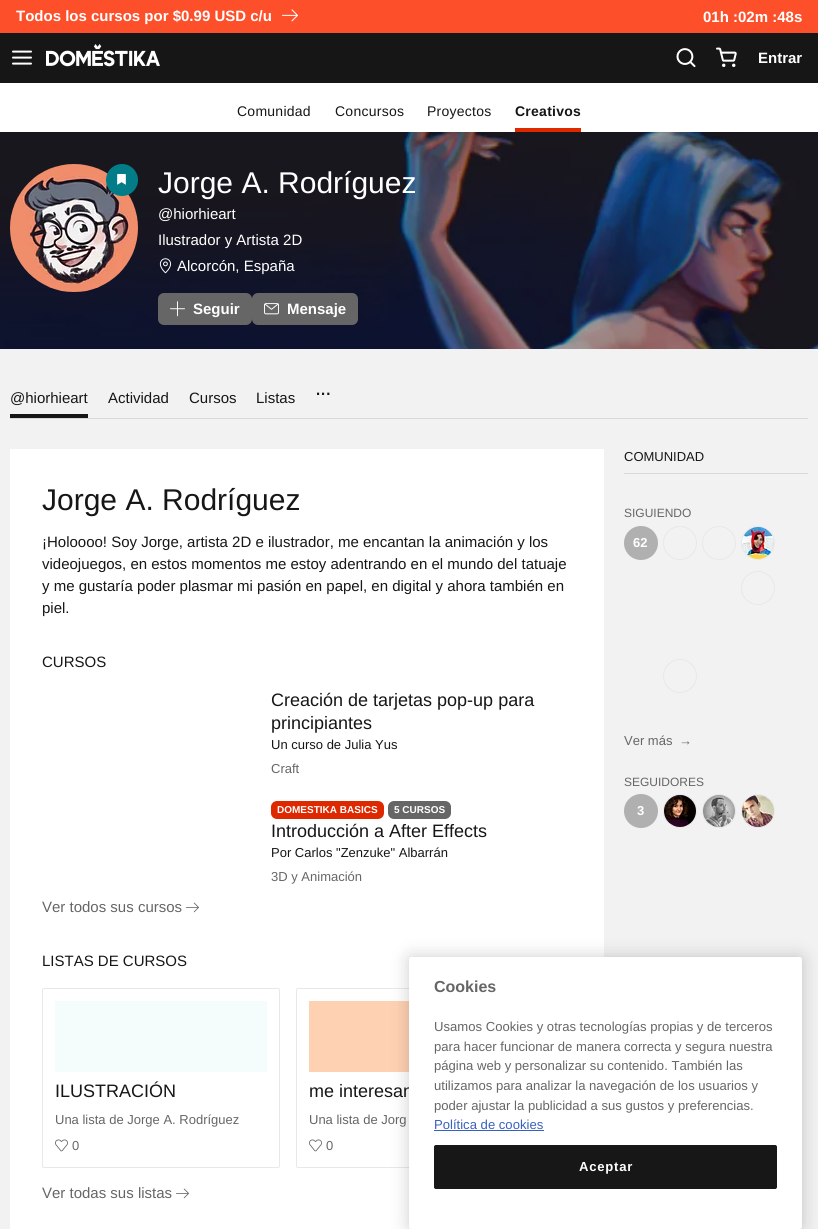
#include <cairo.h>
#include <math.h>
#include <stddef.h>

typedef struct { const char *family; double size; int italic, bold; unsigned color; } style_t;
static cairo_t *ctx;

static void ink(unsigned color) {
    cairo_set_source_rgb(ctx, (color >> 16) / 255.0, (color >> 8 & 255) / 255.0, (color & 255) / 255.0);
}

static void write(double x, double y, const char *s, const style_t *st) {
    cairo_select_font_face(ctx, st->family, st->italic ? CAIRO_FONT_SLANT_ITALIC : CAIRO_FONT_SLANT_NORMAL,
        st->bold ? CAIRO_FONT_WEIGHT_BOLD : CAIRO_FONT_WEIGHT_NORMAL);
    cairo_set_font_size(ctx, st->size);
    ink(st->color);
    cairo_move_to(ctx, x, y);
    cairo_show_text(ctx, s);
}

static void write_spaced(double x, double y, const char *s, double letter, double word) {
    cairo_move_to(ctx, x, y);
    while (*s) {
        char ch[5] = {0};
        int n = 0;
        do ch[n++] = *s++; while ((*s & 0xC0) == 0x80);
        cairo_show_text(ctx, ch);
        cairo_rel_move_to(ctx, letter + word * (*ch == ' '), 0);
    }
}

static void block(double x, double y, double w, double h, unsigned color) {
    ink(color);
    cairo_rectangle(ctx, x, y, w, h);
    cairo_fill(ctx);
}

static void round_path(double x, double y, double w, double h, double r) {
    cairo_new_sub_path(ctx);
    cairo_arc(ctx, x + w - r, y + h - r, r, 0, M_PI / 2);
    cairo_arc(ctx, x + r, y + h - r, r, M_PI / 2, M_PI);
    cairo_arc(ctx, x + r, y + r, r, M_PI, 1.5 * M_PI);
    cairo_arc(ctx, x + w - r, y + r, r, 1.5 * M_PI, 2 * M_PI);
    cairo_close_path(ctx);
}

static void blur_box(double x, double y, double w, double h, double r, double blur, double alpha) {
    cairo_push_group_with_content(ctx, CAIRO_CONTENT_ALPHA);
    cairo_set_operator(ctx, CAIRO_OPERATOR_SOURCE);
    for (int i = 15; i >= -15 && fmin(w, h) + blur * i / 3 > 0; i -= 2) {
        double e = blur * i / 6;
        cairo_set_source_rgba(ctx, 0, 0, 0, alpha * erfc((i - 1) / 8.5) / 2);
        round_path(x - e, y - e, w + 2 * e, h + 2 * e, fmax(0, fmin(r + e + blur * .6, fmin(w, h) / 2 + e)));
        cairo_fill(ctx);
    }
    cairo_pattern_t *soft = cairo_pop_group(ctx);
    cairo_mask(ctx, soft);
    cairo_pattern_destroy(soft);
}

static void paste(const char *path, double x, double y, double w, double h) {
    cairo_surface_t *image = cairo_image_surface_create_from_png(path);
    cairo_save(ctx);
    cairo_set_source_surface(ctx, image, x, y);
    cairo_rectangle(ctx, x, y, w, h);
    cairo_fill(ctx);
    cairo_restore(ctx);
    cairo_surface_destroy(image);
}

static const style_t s1 = {"Liberation Sans", 15, 0, 1, 0xffffff};
static const style_t s2 = {"Liberation Sans", 30, 0, 0, 0xffffff};
static const style_t s3 = {"Liberation Sans", 15, 0, 0, 0xffffff};
static const style_t s4 = {"Liberation Sans", 15, 0, 0, 0x161616};
static const style_t s5 = {"Liberation Sans", 30, 0, 0, 0x161616};
static const style_t s6 = {"Liberation Sans", 18, 0, 0, 0x161616};
static const style_t s7 = {"Liberation Sans", 13, 0, 0, 0x161616};
static const style_t s8 = {"Liberation Sans", 13, 0, 0, 0x666666};
static const style_t s9 = {"Liberation Sans", 10, 0, 1, 0xffffff};
static const style_t s10 = {"Liberation Sans", 15, 0, 0, 0x666666};
static const style_t s11 = {"Liberation Sans", 12, 0, 0, 0x666666};
static const style_t s12 = {"Liberation Sans", 13, 0, 1, 0xffffff};
static const style_t s13 = {"Liberation Sans", 16, 0, 1, 0x666666};
static const style_t s14 = {"Liberation Sans", 13.1, 0, 0, 0x666666};
static const style_t s15 = {"Liberation Sans", 13.1, 0, 0, 0x3860be};

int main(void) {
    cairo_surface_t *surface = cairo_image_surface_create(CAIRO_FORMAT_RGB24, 818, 1229);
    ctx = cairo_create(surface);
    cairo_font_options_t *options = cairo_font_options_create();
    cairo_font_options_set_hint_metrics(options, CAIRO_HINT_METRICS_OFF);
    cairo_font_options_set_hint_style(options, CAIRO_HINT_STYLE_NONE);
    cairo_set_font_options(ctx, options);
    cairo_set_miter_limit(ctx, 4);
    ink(0xf2f2f2);
    cairo_paint(ctx);
    block(0, 0, 818, 33, 0xfd502a);
    write(16, 21, "Todos los cursos por $0.99 USD c/u", &s1);
    paste("pic1.png", 282, 9, 16, 13);
    write(703, 22, "01h :02m :48s", &s1);
    block(0, 33, 818, 50, 0x161616);
    paste("pic2.png", 12, 50, 20, 15);
    paste("pic3.png", 46, 44, 114, 23);
    paste("pic4.png", 676, 48, 20, 20);
    paste("pic5.png", 716, 47, 21, 20);
    write(758, 63, "Entrar", &s1);
    block(0, 83, 818, 49, 0xffffff);
    cairo_select_font_face(ctx, "Liberation Sans", CAIRO_FONT_SLANT_NORMAL, CAIRO_FONT_WEIGHT_NORMAL);
    cairo_set_font_size(ctx, 14);
    ink(0x161616);
    write_spaced(237, 116, "Comunidad", 0.25, 0);
    write_spaced(335, 116, "Concursos", 0.25, 0);
    write_spaced(427, 116, "Proyectos", 0.25, 0);
    block(515, 128, 66, 4, 0xde2900);
    cairo_select_font_face(ctx, "Liberation Sans", CAIRO_FONT_SLANT_NORMAL, CAIRO_FONT_WEIGHT_BOLD);
    ink(0x161616);
    write_spaced(515, 116, "Creativos", 0.25, 0);
    paste("pic6.png", 0, 132, 818, 217);
    paste("pic7.png", 10, 164, 128, 128);
    ink(0x027d88);
    cairo_arc(ctx, 122, 180, 16, 0, 2 * M_PI);
    cairo_fill(ctx);
    paste("pic8.png", 117, 174, 9, 11);
    write(158, 193, "Jorge A. Rodríguez", &s2);
    write(158, 219, "@hiorhieart", &s3);
    write(158, 245, "Ilustrador y Artista 2D", &s3);
    paste("pic9.png", 159, 258, 12, 16);
    write(177, 271, "Alcorcón, España", &s3);
    ink(0x666666);
    round_path(158, 293, 94, 32, 6);
    cairo_fill(ctx);
    paste("pic10.png", 170, 301, 15, 16);
    write(193, 314, "Seguir", &s1);
    ink(0x666666);
    round_path(252, 293, 106, 32, 6);
    cairo_fill(ctx);
    paste("pic11.png", 264, 303, 15, 12);
    write(287, 314, "Mensaje", &s1);
    block(10, 418, 798, 1, 0xd9d9d9);
    block(10, 414, 78, 4, 0x161616);
    write(10, 403, "@hiorhieart", &s4);
    write(108, 403, "Actividad", &s4);
    write(189, 403, "Cursos", &s4);
    write(256, 403, "Listas", &s4);
    cairo_set_font_size(ctx, 22);
    write_spaced(315, 395, "...", -1, 0);
    block(10, 449, 594, 780, 0xffffff);
    write(42, 510, "Jorge A. Rodríguez", &s5);
    write(42, 547, "¡Holoooo! Soy Jorge, artista 2D e ilustrador, me encantan la animación y los", &s4);
    write(42, 569, "videojuegos, en estos momentos me estoy adentrando en el mundo del tatuaje", &s4);
    write(42, 591, "y me gustaría poder plasmar mi pasión en papel, en digital y ahora también en", &s4);
    write(42, 613, "piel.", &s4);
    write(42, 667, "CURSOS", &s4);
    write(271, 706, "Creación de tarjetas pop-up para", &s6);
    write(271, 729, "principiantes", &s6);
    write(271, 749, "Un curso de Julia Yus", &s7);
    write(271, 773, "Craft", &s8);
    ink(0xde2900);
    round_path(271, 801, 113, 18, 6);
    cairo_fill(ctx);
    write(277, 813, "DOMESTIKA BASICS", &s9);
    ink(0x666666);
    round_path(388, 801, 63, 18, 6);
    cairo_fill(ctx);
    write(394, 813, "5 CURSOS", &s9);
    write(271, 837, "Introducción a After Effects", &s6);
    write(271, 857, "Por Carlos \"Zenzuke\" Albarrán", &s7);
    write(271, 881, "3D y Animación", &s8);
    write(42, 912, "Ver todos sus cursos", &s10);
    paste("pic12.png", 186, 902, 13, 11);
    write(42, 966, "LISTAS DE CURSOS", &s4);
    round_path(42.5, 988.5, 237, 179, 1.5);
    ink(0xe8e8e8);
    cairo_set_line_width(ctx, 1);
    cairo_stroke(ctx);
    block(55, 1001, 212, 71, 0xf4fcfc);
    write(55, 1097, "ILUSTRACIÓN", &s6);
    write(55, 1124, "Una lista de Jorge A. Rodríguez", &s8);
    paste("pic13.png", 55, 1139, 13, 13);
    write(72, 1150, "0", &s8);
    round_path(296.5, 988.5, 237, 179, 1.5);
    ink(0xe8e8e8);
    cairo_stroke(ctx);
    block(309, 1001, 100, 71, 0xffd1b3);
    write(309, 1097, "me interesan", &s6);
    write(309, 1124, "Una lista de Jorg", &s8);
    paste("pic13.png", 309, 1139, 13, 13);
    write(326, 1150, "0", &s8);
    write(42, 1198, "Ver todas sus listas", &s10);
    paste("pic12.png", 176, 1188, 13, 11);
    block(624, 473, 184, 1, 0xd9d9d9);
    write(624, 461, "COMUNIDAD", &s7);
    write(624, 517, "SIGUIENDO", &s11);
    ink(0xb0b0b0);
    cairo_new_path(ctx);
    cairo_arc(ctx, 641, 543, 17, 0, 2 * M_PI);
    cairo_fill(ctx);
    write(633, 547, "62", &s12);
    cairo_new_path(ctx);
    cairo_arc(ctx, 680, 543, 16.5, 0, 2 * M_PI);
    ink(0xe8e8e8);
    cairo_stroke(ctx);
    cairo_arc(ctx, 719, 543, 16.5, 0, 2 * M_PI);
    cairo_stroke(ctx);
    cairo_arc(ctx, 758, 543, 16.5, 0, 2 * M_PI);
    cairo_stroke(ctx);
    paste("pic14.png", 742, 527, 32, 32);
    cairo_arc(ctx, 758, 588, 16.5, 0, 2 * M_PI);
    cairo_stroke(ctx);
    cairo_arc(ctx, 680, 676, 16.5, 0, 2 * M_PI);
    cairo_stroke(ctx);
    write(624, 745, "Ver más", &s8);
    write(679, 745, "→", &s8);
    write(624, 786, "SEGUIDORES", &s11);
    ink(0xb0b0b0);
    cairo_new_path(ctx);
    cairo_arc(ctx, 641, 811, 17, 0, 2 * M_PI);
    cairo_fill(ctx);
    write(637, 815, "3", &s12);
    cairo_new_path(ctx);
    cairo_arc(ctx, 680, 811, 16.5, 0, 2 * M_PI);
    ink(0xe8e8e8);
    cairo_stroke(ctx);
    paste("pic15.png", 664, 795, 32, 32);
    cairo_arc(ctx, 719, 811, 16.5, 0, 2 * M_PI);
    cairo_stroke(ctx);
    paste("pic16.png", 703, 795, 32, 32);
    cairo_arc(ctx, 758, 811, 16.5, 0, 2 * M_PI);
    cairo_stroke(ctx);
    paste("pic17.png", 742, 795, 32, 32);
    ink(0x000000);
    blur_box(409, 957, 393, 272, 2.5, 9, 0.2);
    ink(0xffffff);
    round_path(409, 957, 393, 272, 2.5);
    cairo_fill(ctx);
    write(434, 992, "Cookies", &s13);
    write(434, 1031, "Usamos Cookies y otras tecnologías propias y de terceros", &s14);
    write(434, 1051, "para hacer funcionar de manera correcta y segura nuestra", &s14);
    write(434, 1070, "página web y personalizar su contenido. También las", &s14);
    write(434, 1090, "utilizamos para analizar la navegación de los usuarios y", &s14);
    write(434, 1110, "poder ajustar la publicidad a sus gustos y preferencias.", &s14);
    write(434, 1129, "Política de cookies", &s15);
    block(434, 1130, 110, 1, 0x3860be);
    ink(0x171717);
    round_path(434.5, 1145.5, 342, 43, 1.5);
    cairo_fill_preserve(ctx);
    cairo_stroke(ctx);
    cairo_select_font_face(ctx, "Liberation Sans", CAIRO_FONT_SLANT_NORMAL, CAIRO_FONT_WEIGHT_BOLD);
    ink(0xffffff);
    write_spaced(579, 1171, "Aceptar", 0.75, 0);
    cairo_surface_write_to_png(surface, "screenshot.png");
    cairo_font_options_destroy(options);
    cairo_destroy(ctx);
    cairo_surface_destroy(surface);
    return 0;
}
